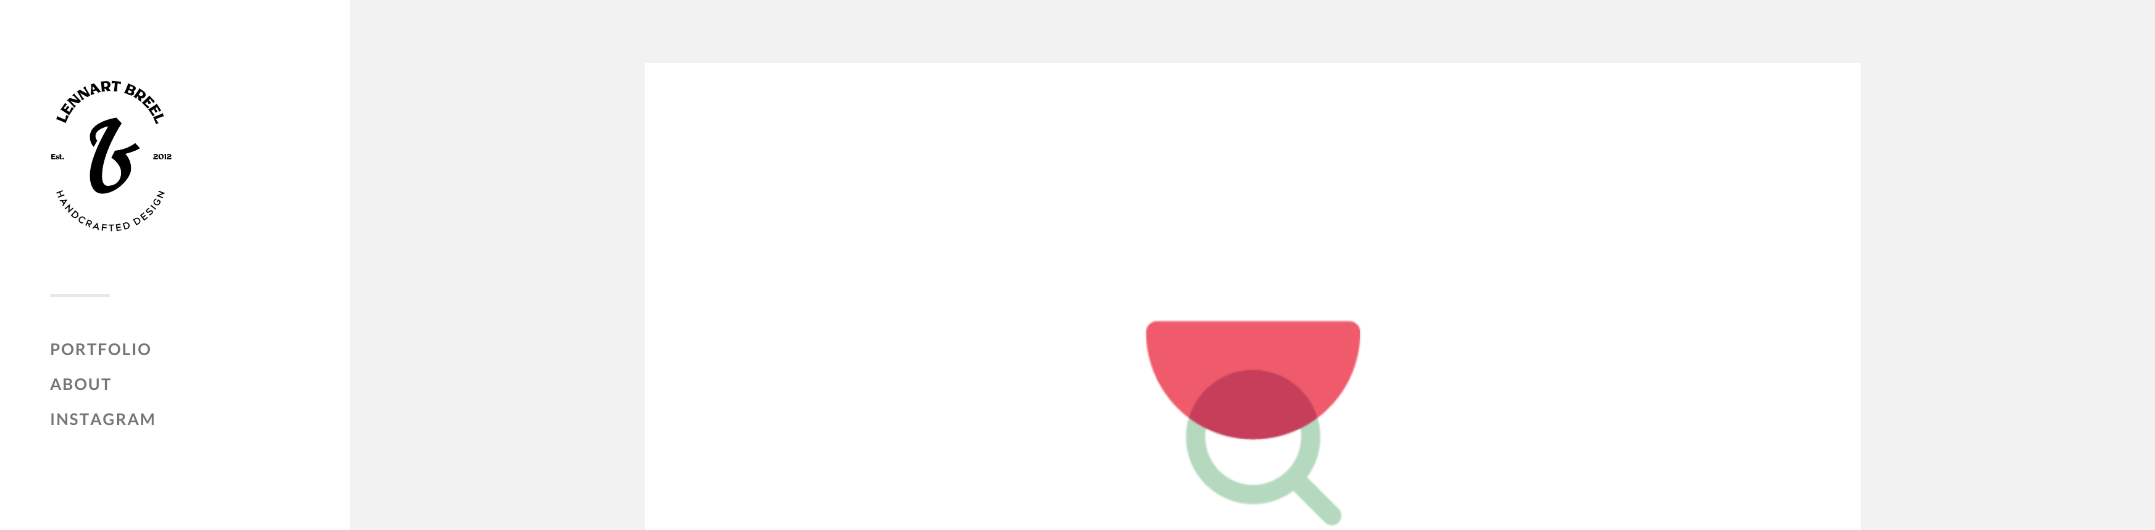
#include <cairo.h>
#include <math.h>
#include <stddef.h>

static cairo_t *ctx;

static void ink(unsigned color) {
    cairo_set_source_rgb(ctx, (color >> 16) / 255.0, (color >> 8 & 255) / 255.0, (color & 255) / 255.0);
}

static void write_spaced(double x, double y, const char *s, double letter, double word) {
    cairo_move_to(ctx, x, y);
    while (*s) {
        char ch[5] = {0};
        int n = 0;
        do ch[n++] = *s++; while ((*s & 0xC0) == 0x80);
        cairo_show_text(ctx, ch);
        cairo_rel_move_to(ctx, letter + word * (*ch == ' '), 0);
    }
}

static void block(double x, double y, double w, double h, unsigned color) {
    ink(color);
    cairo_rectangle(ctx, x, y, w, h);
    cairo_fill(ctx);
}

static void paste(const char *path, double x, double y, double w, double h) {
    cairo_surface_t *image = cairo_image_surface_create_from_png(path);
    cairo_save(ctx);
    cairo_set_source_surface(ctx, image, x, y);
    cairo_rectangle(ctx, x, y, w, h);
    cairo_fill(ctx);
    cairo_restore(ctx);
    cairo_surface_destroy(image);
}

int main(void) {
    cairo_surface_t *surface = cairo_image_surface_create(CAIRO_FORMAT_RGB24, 2155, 530);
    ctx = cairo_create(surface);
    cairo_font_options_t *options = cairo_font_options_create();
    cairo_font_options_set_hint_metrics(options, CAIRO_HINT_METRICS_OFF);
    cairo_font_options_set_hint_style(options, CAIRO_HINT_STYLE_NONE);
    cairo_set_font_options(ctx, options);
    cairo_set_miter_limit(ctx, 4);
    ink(0xf2f2f2);
    cairo_paint(ctx);
    block(0, 0, 350, 530, 0xffffff);
    paste("pic1.png", 50, 80, 122, 152);
    block(50, 294, 60, 3, 0xe7e7e7);
    cairo_select_font_face(ctx, "Lato", CAIRO_FONT_SLANT_NORMAL, CAIRO_FONT_WEIGHT_BOLD);
    cairo_set_font_size(ctx, 16);
    ink(0x767676);
    write_spaced(50, 355, "PORTFOLIO", 1.25, 0);
    write_spaced(50, 390, "ABOUT", 1.25, 0);
    write_spaced(50, 425, "INSTAGRAM", 1.25, 0);
    block(645, 63, 1216, 467, 0xffffff);
    paste("pic2.png", 1145, 320, 217, 207);
    cairo_surface_write_to_png(surface, "screenshot.png");
    cairo_font_options_destroy(options);
    cairo_destroy(ctx);
    cairo_surface_destroy(surface);
    return 0;
}
